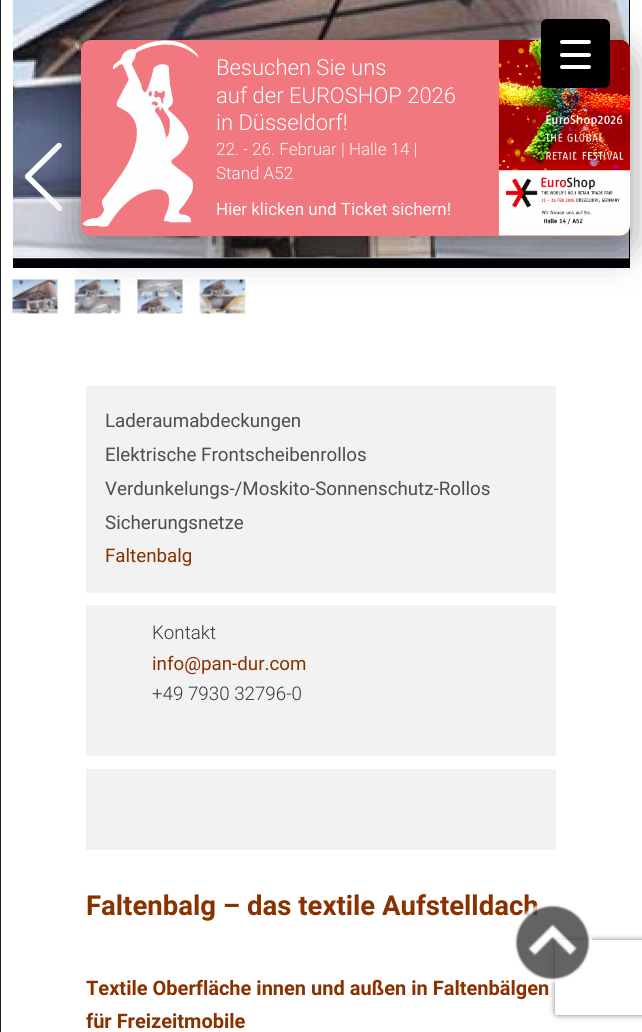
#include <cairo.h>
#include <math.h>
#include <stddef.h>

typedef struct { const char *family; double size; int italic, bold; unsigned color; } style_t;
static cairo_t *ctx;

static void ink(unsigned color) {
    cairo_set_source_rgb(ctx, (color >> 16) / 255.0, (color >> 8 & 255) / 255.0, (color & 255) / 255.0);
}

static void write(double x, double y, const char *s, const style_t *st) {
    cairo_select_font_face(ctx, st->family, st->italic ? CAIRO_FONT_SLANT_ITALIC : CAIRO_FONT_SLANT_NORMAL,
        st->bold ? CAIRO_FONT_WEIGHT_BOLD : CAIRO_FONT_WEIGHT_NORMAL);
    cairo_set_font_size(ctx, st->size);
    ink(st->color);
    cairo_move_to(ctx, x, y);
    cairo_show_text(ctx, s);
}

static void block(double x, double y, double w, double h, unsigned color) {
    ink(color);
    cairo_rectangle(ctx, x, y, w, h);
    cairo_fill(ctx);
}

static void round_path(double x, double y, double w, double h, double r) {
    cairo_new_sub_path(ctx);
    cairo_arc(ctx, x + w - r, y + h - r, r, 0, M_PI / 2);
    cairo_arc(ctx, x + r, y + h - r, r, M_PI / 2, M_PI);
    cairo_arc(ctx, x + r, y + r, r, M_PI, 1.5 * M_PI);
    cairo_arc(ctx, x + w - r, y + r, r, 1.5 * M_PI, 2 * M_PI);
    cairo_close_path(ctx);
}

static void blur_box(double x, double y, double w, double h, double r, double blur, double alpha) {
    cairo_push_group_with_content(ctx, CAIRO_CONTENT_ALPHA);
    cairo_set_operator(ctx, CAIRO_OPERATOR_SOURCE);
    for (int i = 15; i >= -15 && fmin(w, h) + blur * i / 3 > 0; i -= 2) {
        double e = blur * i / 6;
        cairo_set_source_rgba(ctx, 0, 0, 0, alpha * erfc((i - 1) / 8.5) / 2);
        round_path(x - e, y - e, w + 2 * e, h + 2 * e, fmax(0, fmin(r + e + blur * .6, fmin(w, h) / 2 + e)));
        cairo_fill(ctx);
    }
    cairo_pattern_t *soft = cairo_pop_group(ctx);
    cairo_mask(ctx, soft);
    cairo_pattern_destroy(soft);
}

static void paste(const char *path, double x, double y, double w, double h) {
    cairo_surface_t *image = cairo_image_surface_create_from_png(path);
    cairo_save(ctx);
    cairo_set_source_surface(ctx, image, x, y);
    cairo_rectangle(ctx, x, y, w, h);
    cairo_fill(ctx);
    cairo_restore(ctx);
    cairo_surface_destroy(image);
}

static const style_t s1 = {"Roboto Light", 22, 0, 0, 0xffffff};
static const style_t s2 = {"Roboto Light", 17, 0, 0, 0xfef8f9};
static const style_t s3 = {"Roboto", 17, 0, 0, 0xfef8f9};
static const style_t s4 = {"Roboto", 18.75, 0, 0, 0x4d4d4d};
static const style_t s5 = {"Roboto", 18.75, 0, 0, 0x893200};
static const style_t s6 = {"Roboto Light", 18.75, 0, 0, 0x373737};
static const style_t s7 = {"Roboto", 27.5, 0, 1, 0x893200};
static const style_t s8 = {"Roboto", 20, 0, 1, 0x893200};

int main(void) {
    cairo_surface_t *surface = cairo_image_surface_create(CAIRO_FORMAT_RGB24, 642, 1032);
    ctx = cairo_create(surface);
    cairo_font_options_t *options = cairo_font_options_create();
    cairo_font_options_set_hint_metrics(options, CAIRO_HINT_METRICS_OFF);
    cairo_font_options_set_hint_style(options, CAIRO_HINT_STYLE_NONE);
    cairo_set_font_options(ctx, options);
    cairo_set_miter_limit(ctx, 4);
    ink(0xffffff);
    cairo_paint(ctx);
    block(0, 0, 1, 1032, 0x212121);
    block(13, 0, 617, 268, 0x020106);
    paste("pic1.png", 13, 0, 616, 259);
    cairo_save(ctx);
    cairo_rectangle(ctx, 25, 143, 37, 68);
    cairo_clip(ctx);
    cairo_new_path(ctx);
    cairo_move_to(ctx, 59, 145.5);
    cairo_line_to(ctx, 27.5, 176.5);
    cairo_line_to(ctx, 60, 208.5);
    ink(0xffffff);
    cairo_set_line_width(ctx, 5.5);
    cairo_set_line_cap(ctx, CAIRO_LINE_CAP_ROUND);
    cairo_set_line_join(ctx, CAIRO_LINE_JOIN_ROUND);
    cairo_stroke(ctx);
    cairo_restore(ctx);
    paste("pic4.png", 12, 279, 46, 35);
    paste("pic5.png", 74, 279, 47, 35);
    paste("pic6.png", 137, 279, 46, 35);
    paste("pic7.png", 199, 279, 47, 35);
    ink(0x000000);
    blur_box(81, 53, 549, 196, 10, 19, 0.4);
    ink(0xf0787e);
    round_path(81, 40, 549, 196, 10);
    cairo_fill(ctx);
    paste("pic2.png", 82, 40, 116, 187);
    write(216, 75, "Besuchen Sie uns", &s1);
    write(216, 103, "auf der EUROSHOP 2026", &s1);
    write(216, 130, "in Düsseldorf!", &s1);
    write(216, 155, "22. - 26. Februar | Halle 14 |", &s2);
    write(216, 179, "Stand A52", &s2);
    write(216, 215, "Hier klicken und Ticket sichern!", &s3);
    paste("pic3.png", 498, 39, 132, 197);
    block(86, 386, 470, 464, 0xf2f2f2);
    block(86, 593, 470, 12, 0xffffff);
    write(105, 427, "Laderaumabdeckungen", &s4);
    write(105, 461, "Elektrische Frontscheibenrollos", &s4);
    write(105, 495, "Verdunkelungs-/Moskito-Sonnenschutz-Rollos", &s4);
    write(105, 529, "Sicherungsnetze", &s4);
    write(105, 562, "Faltenbalg", &s5);
    write(152, 639, "Kontakt", &s6);
    write(152, 670, "info@pan-dur.com", &s5);
    write(152, 700, "+49 7930 32796-0", &s6);
    block(86, 756, 470, 13, 0xffffff);
    write(86, 915, "Faltenbalg – das textile Aufstelldach", &s7);
    write(86, 995, "Textile Oberfläche innen und außen in Faltenbälgen", &s8);
    write(86, 1028, "für Freizeitmobile", &s8);
    ink(0x000000);
    round_path(541, 19, 69, 69, 6);
    cairo_fill(ctx);
    ink(0xffffff);
    round_path(560, 53, 31, 4, 2);
    cairo_fill(ctx);
    round_path(560, 40, 31, 4, 2);
    cairo_fill(ctx);
    round_path(560, 65, 31, 4, 2);
    cairo_fill(ctx);
    cairo_save(ctx);
    cairo_set_fill_rule(ctx, CAIRO_FILL_RULE_EVEN_ODD);
    cairo_new_path(ctx);
    cairo_move_to(ctx, 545, 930);
    cairo_line_to(ctx, 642, 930);
    cairo_line_to(ctx, 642, 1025);
    cairo_line_to(ctx, 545, 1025);
    cairo_close_path(ctx);
    cairo_move_to(ctx, 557.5, 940);
    cairo_line_to(ctx, 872.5, 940);
    cairo_curve_to(ctx, 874, 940, 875, 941, 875, 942.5);
    cairo_line_to(ctx, 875, 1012.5);
    cairo_curve_to(ctx, 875, 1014, 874, 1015, 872.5, 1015);
    cairo_line_to(ctx, 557.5, 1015);
    cairo_curve_to(ctx, 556, 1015, 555, 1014, 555, 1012.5);
    cairo_line_to(ctx, 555, 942.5);
    cairo_curve_to(ctx, 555, 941, 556, 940, 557.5, 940);
    cairo_close_path(ctx);
    cairo_clip(ctx);
    ink(0x808080);
    blur_box(555, 940, 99, 75, 2.5, 3, 1);
    cairo_restore(ctx);
    paste("pic8.png", 514, 904, 79, 79);
    cairo_surface_write_to_png(surface, "screenshot.png");
    cairo_font_options_destroy(options);
    cairo_destroy(ctx);
    cairo_surface_destroy(surface);
    return 0;
}
